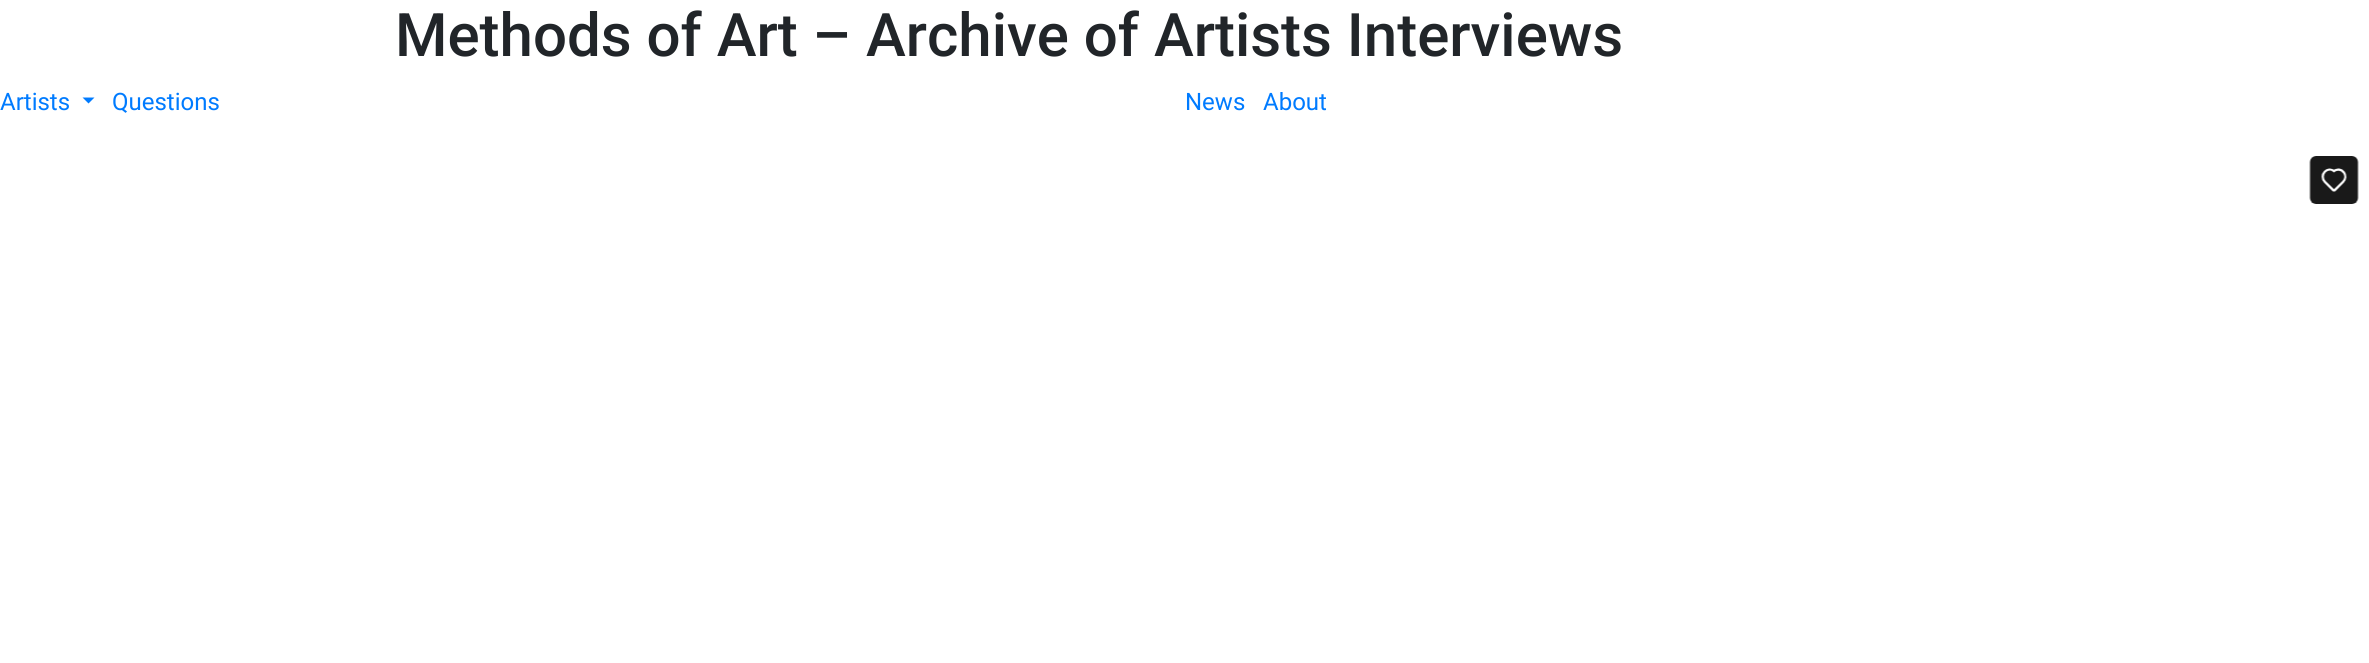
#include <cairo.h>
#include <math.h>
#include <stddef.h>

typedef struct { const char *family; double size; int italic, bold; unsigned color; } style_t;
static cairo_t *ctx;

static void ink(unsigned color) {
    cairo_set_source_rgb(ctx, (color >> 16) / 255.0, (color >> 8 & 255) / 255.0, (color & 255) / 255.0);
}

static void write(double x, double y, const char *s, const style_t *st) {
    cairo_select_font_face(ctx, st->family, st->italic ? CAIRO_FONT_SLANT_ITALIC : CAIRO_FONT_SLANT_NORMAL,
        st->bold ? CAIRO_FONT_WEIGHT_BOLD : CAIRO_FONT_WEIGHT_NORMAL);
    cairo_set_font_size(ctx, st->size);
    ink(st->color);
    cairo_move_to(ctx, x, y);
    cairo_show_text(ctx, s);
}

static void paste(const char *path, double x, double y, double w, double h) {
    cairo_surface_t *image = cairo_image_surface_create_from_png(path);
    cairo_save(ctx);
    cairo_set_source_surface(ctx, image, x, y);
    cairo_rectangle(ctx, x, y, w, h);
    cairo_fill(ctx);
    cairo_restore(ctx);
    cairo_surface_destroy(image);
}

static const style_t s1 = {"Roboto Medium", 60, 0, 0, 0x212529};
static const style_t s2 = {"Roboto", 24, 0, 0, 0x007bff};

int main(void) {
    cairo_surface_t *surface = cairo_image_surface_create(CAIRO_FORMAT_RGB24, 2369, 663);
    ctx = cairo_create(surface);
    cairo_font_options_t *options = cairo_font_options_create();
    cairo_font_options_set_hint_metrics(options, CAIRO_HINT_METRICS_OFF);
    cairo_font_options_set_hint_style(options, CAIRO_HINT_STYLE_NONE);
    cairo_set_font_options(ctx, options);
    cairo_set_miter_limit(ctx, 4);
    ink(0xffffff);
    cairo_paint(ctx);
    write(395, 56, "Methods of Art – Archive of Artists Interviews", &s1);
    write(0, 110, "Artists", &s2);
    cairo_new_path(ctx);
    cairo_move_to(ctx, 82.5, 97.5);
    cairo_line_to(ctx, 94.5, 97.5);
    cairo_line_to(ctx, 88.5, 103.5);
    cairo_close_path(ctx);
    cairo_fill(ctx);
    write(112, 110, "Questions", &s2);
    write(1185, 110, "News", &s2);
    write(1263, 110, "About", &s2);
    paste("pic1.png", 2309, 156, 50, 48);
    cairo_surface_write_to_png(surface, "screenshot.png");
    cairo_font_options_destroy(options);
    cairo_destroy(ctx);
    cairo_surface_destroy(surface);
    return 0;
}
